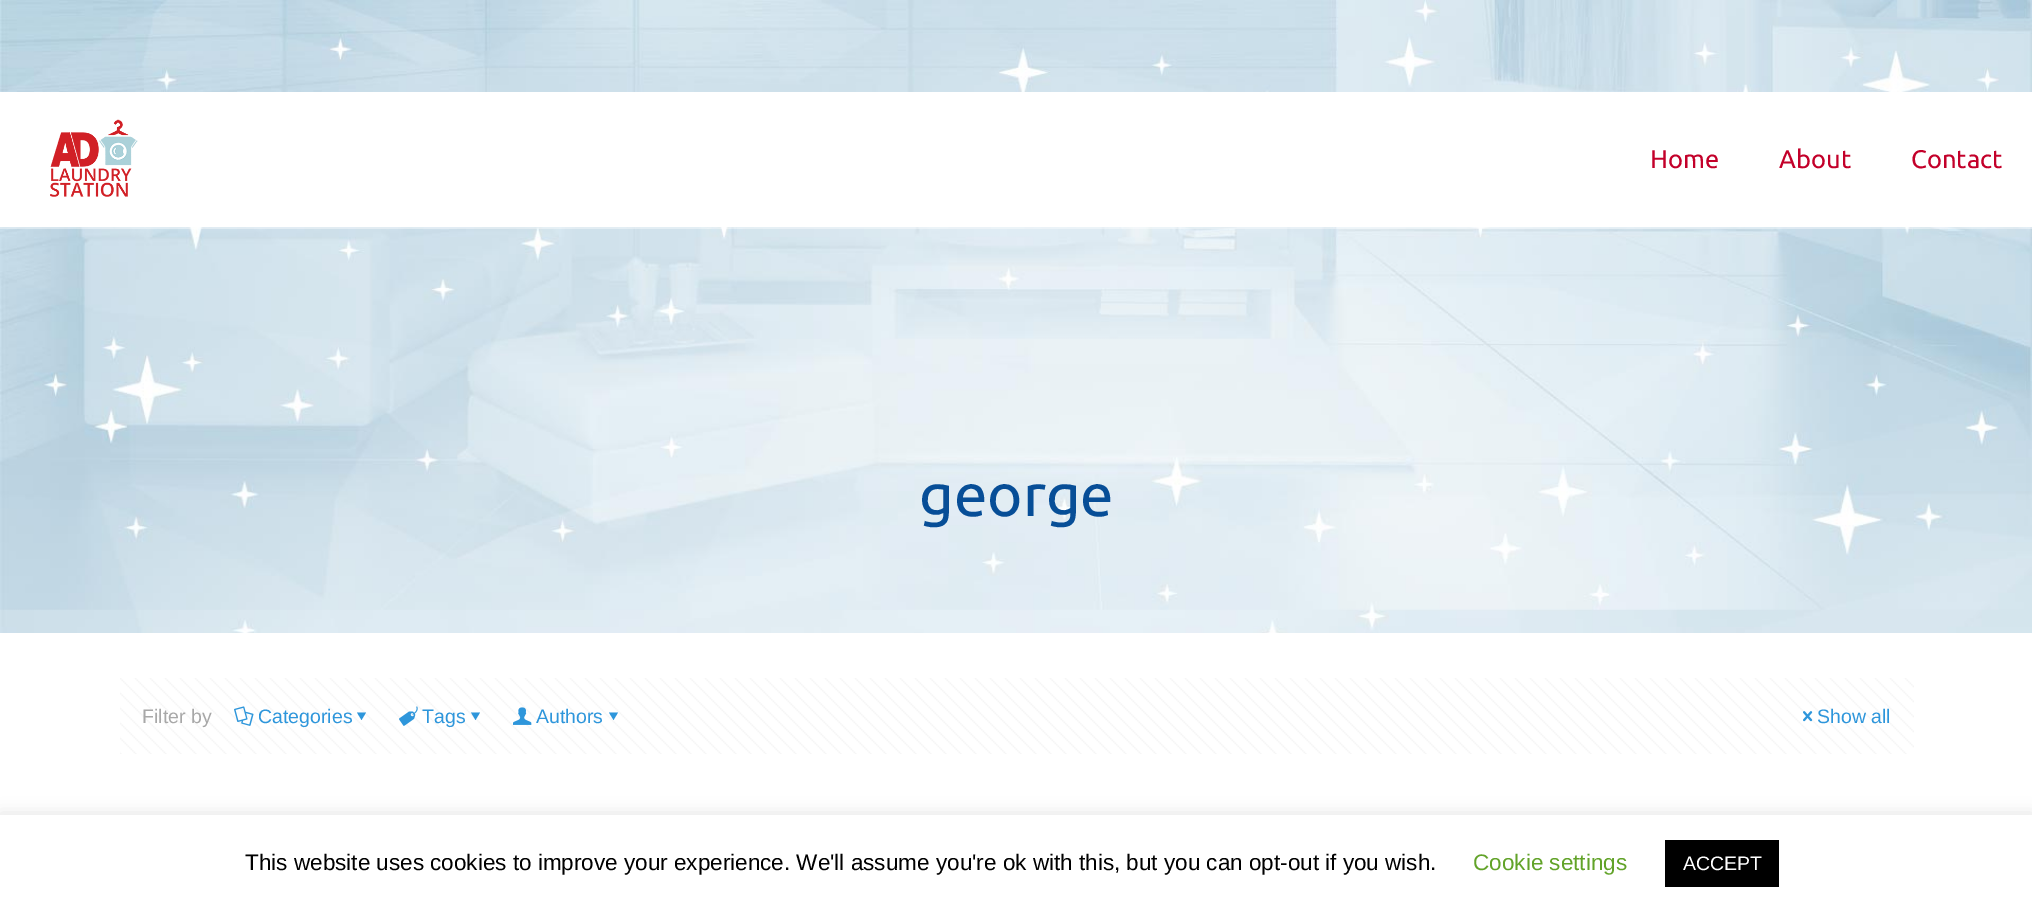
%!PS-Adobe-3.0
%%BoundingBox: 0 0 2032 912
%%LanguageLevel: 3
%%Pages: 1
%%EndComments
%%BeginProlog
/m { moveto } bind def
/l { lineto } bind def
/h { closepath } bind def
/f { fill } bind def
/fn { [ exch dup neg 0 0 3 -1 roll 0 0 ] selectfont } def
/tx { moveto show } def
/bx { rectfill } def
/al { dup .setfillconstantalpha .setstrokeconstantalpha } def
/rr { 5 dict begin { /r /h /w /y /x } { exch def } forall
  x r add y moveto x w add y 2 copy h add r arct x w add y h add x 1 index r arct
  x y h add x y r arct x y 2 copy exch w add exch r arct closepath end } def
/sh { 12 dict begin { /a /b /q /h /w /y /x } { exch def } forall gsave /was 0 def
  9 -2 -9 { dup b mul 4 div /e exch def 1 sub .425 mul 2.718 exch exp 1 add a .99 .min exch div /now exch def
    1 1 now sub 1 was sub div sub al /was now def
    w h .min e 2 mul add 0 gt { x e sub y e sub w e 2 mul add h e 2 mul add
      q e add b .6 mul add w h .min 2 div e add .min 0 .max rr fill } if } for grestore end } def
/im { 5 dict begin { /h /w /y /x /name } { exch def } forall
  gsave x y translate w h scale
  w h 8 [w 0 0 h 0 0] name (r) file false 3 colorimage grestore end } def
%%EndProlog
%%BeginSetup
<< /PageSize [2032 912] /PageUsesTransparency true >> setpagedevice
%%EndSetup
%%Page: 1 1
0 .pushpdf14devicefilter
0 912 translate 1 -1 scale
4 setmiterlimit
1 setgray
0 0 2032 912 bx
(image0.raw) 0 0 2032 633 im
0.4 al
0 227 2032 2 bx
1 al
0 92 2032 135 bx
(image1.raw) 50 119 88 78 im
/Ubuntu-Regular 25.5 fn
0.765 0 0.165 setrgbcolor
(Home) 1650 168 tx
(About) 1779 168 tx
(Contact) 1911 168 tx
/Ubuntu-Regular 60 fn
0.027 0.306 0.592 setrgbcolor
(george) 919 516 tx
(image2.raw) 120 678 1794 76 im
/LiberationSans-Regular 19.5 fn
0.659 setgray
(Filter by) 142 723 tx
(image3.raw) 234 706 20 20 im
0.18 0.588 0.859 setrgbcolor
(Categories) 258 723 tx
366 712.5 m 361.5 720 l 357 712.5 l h f
(image4.raw) 399 706 19 20 im
(Tags) 422 723 tx
480 712.5 m 475.5 720 l 471 712.5 l h f
(image5.raw) 513 707 19 18 im
(Authors) 536 723 tx
618 712.5 m 613.5 720 l 609 712.5 l h f
(image6.raw) 1803 711 10 11 im
(Show all) 1817 723 tx
0.675 0.671 0.671 setrgbcolor
0 813 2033 98 0 7.5 0.3 sh
1 setgray
0 815 2032 97 bx
/LiberationSans-Regular 22.5 fn
0 setgray
(This website uses cookies to improve your experience. We'll assume you're ok with this, but you can opt-out if you wish.) 245 870 tx
0.384 0.639 0.161 setrgbcolor
(Cookie settings) 1473 870 tx
0 setgray
1665 840 114 47 bx
/LiberationSans-Regular 19.5 fn
1 setgray
(ACCEPT) 1683 870 tx
.poppdf14devicefilter showpage
%%EOF
